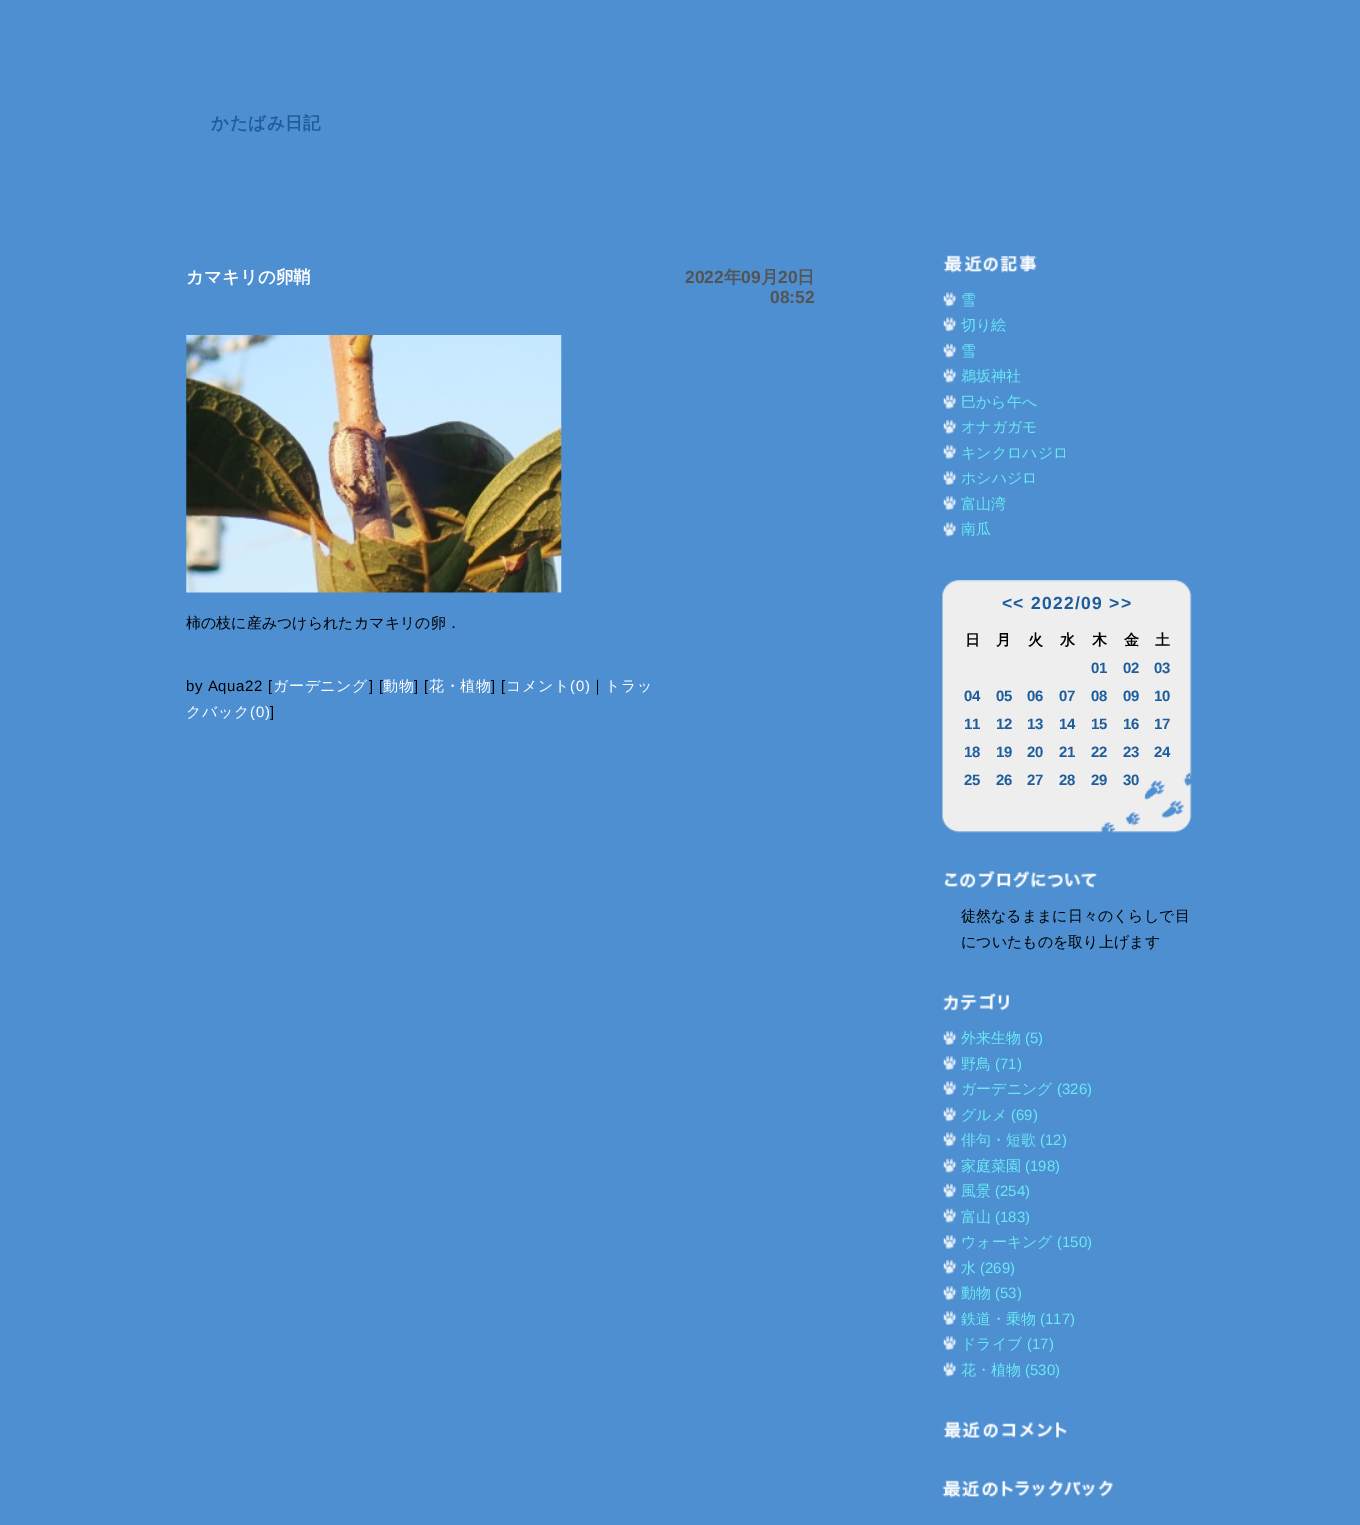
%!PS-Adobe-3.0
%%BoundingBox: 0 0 1360 1525
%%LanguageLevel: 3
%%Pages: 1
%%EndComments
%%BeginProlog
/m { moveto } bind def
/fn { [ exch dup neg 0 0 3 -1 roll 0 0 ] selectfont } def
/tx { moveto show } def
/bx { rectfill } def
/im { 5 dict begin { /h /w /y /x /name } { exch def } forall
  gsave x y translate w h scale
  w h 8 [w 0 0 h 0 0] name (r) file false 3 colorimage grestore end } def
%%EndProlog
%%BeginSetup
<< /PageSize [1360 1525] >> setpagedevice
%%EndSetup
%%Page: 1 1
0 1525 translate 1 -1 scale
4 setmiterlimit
0.306 0.561 0.82 setrgbcolor
0 0 1360 1525 bx
/WenQuanYiZenHei-Bold 17.5 fn
0.114 0.365 0.608 setrgbcolor
211 129 m 0.6 0 (かたばみ日記) ashow
1 setgray
(カマキリの卵鞘) 186 283 tx
/LiberationSans-Bold 17.5 fn
0.329 setgray
(2022) 685 283 tx
/WenQuanYiZenHei-Bold 17.5 fn
(年) 724 283 tx
/LiberationSans-Bold 17.5 fn
(09) 741 283 tx
/WenQuanYiZenHei-Bold 17.5 fn
(月) 761 283 tx
/LiberationSans-Bold 17.5 fn
(20) 778 283 tx
/WenQuanYiZenHei-Bold 17.5 fn
(日) 797 283 tx
/LiberationSans-Bold 17.5 fn
(08:52) 770 303 tx
(image0.raw) 186 335 376 258 im
/WenQuanYiZenHei-Medium 15 fn
0 setgray
(柿の枝に産みつけられたカマキリの卵．) 186 628 tx
/LiberationSans-Regular 15 fn
186 691 m 0.6 0 (by Aqua22 [) ashow
/WenQuanYiZenHei-Medium 15 fn
1 setgray
273 691 m 0.6 0 (ガーデニング) ashow
/LiberationSans-Regular 15 fn
0 setgray
369 691 m 0.6 0 (] [) ashow
/WenQuanYiZenHei-Medium 15 fn
1 setgray
383 691 m 0.6 0 (動物) ashow
/LiberationSans-Regular 15 fn
0 setgray
414 691 m 0.6 0 (] [) ashow
/WenQuanYiZenHei-Medium 15 fn
1 setgray
429 691 m 0.6 0 (花・植物) ashow
/LiberationSans-Regular 15 fn
0 setgray
491 691 m 0.6 0 (] [) ashow
/WenQuanYiZenHei-Medium 15 fn
1 setgray
506 691 m 0.6 0 (コメント) ashow
/LiberationSans-Regular 15 fn
570 691 m 0.6 0 (\(0\)) ashow
/WenQuanYiZenHei-Medium 15 fn
0 setgray
590 691 m 0.6 0 (｜) ashow
1 setgray
605 691 m 0.6 0 (トラッ) ashow
186 717 m 0.6 0 (クバック) ashow
/LiberationSans-Regular 15 fn
250 717 m 0.6 0 (\(0\)) ashow
0 setgray
270 717 m 0.6 0 (]) ashow
(image1.raw) 943 254 94 19 im
(image2.raw) 943 292 14 15 im
/WenQuanYiZenHei-Medium 15 fn
0.408 0.918 0.965 setrgbcolor
(雪) 961 305 tx
(image3.raw) 943 317 14 15 im
(切り絵) 961 330 tx
(image4.raw) 943 343 14 15 im
(雪) 961 356 tx
(image4.raw) 943 368 14 15 im
(鵜坂神社) 961 381 tx
(image5.raw) 943 395 14 14 im
(巳から午へ) 961 407 tx
(image5.raw) 943 420 14 14 im
(オナガガモ) 961 432 tx
(image5.raw) 943 445 14 14 im
(キンクロハジロ) 961 458 tx
(image6.raw) 943 471 14 14 im
(ホシハジロ) 961 483 tx
(image6.raw) 943 496 14 14 im
(富山湾) 961 509 tx
(image3.raw) 943 522 14 15 im
(南瓜) 961 534 tx
(image7.raw) 942 580 250 253 im
/LiberationSans-Bold 17.5 fn
0.114 0.365 0.608 setrgbcolor
1002 609 m 1.25 0 (<< 2022/09 >>) ashow
/WenQuanYiZenHei-Bold 15 fn
0 setgray
(日) 965 645 tx
(月) 996 645 tx
(火) 1028 645 tx
(水) 1060 645 tx
(木) 1092 645 tx
(金) 1124 645 tx
(土) 1155 645 tx
/LiberationSans-Bold 15 fn
0.114 0.365 0.608 setrgbcolor
(01) 1091 673 tx
(02) 1123 673 tx
(03) 1154 673 tx
(04) 964 701 tx
(05) 996 701 tx
(06) 1027 701 tx
(07) 1059 701 tx
(08) 1091 701 tx
(09) 1123 701 tx
(10) 1154 701 tx
(11) 964 729 tx
(12) 996 729 tx
(13) 1027 729 tx
(14) 1059 729 tx
(15) 1091 729 tx
(16) 1123 729 tx
(17) 1154 729 tx
(18) 964 757 tx
(19) 996 757 tx
(20) 1027 757 tx
(21) 1059 757 tx
(22) 1091 757 tx
(23) 1123 757 tx
(24) 1154 757 tx
(25) 964 785 tx
(26) 996 785 tx
(27) 1027 785 tx
(28) 1059 785 tx
(29) 1091 785 tx
(30) 1123 785 tx
(image8.raw) 944 870 153 18 im
/WenQuanYiZenHei-Medium 15 fn
0 setgray
(徒然なるままに日々のくらしで目) 961 921 tx
(についたものを取り上げます) 961 947 tx
(image9.raw) 943 992 66 19 im
(image6.raw) 943 1031 14 14 im
0.408 0.918 0.965 setrgbcolor
(外来生物) 961 1043 tx
/LiberationSans-Regular 15 fn
(\(5\)) 1025 1043 tx
(image6.raw) 943 1056 14 14 im
/WenQuanYiZenHei-Medium 15 fn
(野鳥) 961 1069 tx
/LiberationSans-Regular 15 fn
(\(71\)) 995 1069 tx
(image6.raw) 943 1081 14 14 im
/WenQuanYiZenHei-Medium 15 fn
(ガーデニング) 961 1094 tx
/LiberationSans-Regular 15 fn
(\(326\)) 1057 1094 tx
(image3.raw) 943 1107 14 15 im
/WenQuanYiZenHei-Medium 15 fn
(グルメ) 961 1120 tx
/LiberationSans-Regular 15 fn
(\(69\)) 1011 1120 tx
(image3.raw) 943 1132 14 15 im
/WenQuanYiZenHei-Medium 15 fn
(俳句・短歌) 961 1145 tx
/LiberationSans-Regular 15 fn
(\(12\)) 1040 1145 tx
(image4.raw) 943 1158 14 15 im
/WenQuanYiZenHei-Medium 15 fn
(家庭菜園) 961 1171 tx
/LiberationSans-Regular 15 fn
(\(198\)) 1025 1171 tx
(image4.raw) 943 1183 14 15 im
/WenQuanYiZenHei-Medium 15 fn
(風景) 961 1196 tx
/LiberationSans-Regular 15 fn
(\(254\)) 995 1196 tx
(image4.raw) 943 1208 14 15 im
/WenQuanYiZenHei-Medium 15 fn
(富山) 961 1222 tx
/LiberationSans-Regular 15 fn
(\(183\)) 995 1222 tx
(image5.raw) 943 1235 14 14 im
/WenQuanYiZenHei-Medium 15 fn
(ウォーキング) 961 1247 tx
/LiberationSans-Regular 15 fn
(\(150\)) 1057 1247 tx
(image5.raw) 943 1260 14 14 im
/WenQuanYiZenHei-Medium 15 fn
(水) 961 1273 tx
/LiberationSans-Regular 15 fn
(\(269\)) 980 1273 tx
(image6.raw) 943 1286 14 14 im
/WenQuanYiZenHei-Medium 15 fn
(動物) 961 1298 tx
/LiberationSans-Regular 15 fn
(\(53\)) 995 1298 tx
(image6.raw) 943 1311 14 14 im
/WenQuanYiZenHei-Medium 15 fn
(鉄道・乗物) 961 1324 tx
/LiberationSans-Regular 15 fn
(\(117\)) 1040 1324 tx
(image6.raw) 943 1336 14 14 im
/WenQuanYiZenHei-Medium 15 fn
(ドライブ) 961 1349 tx
/LiberationSans-Regular 15 fn
(\(17\)) 1027 1349 tx
(image3.raw) 943 1362 14 15 im
/WenQuanYiZenHei-Medium 15 fn
(花・植物) 961 1375 tx
/LiberationSans-Regular 15 fn
(\(530\)) 1025 1375 tx
(image10.raw) 943 1421 124 18 im
(image11.raw) 942 1480 171 18 im
showpage
%%EOF
